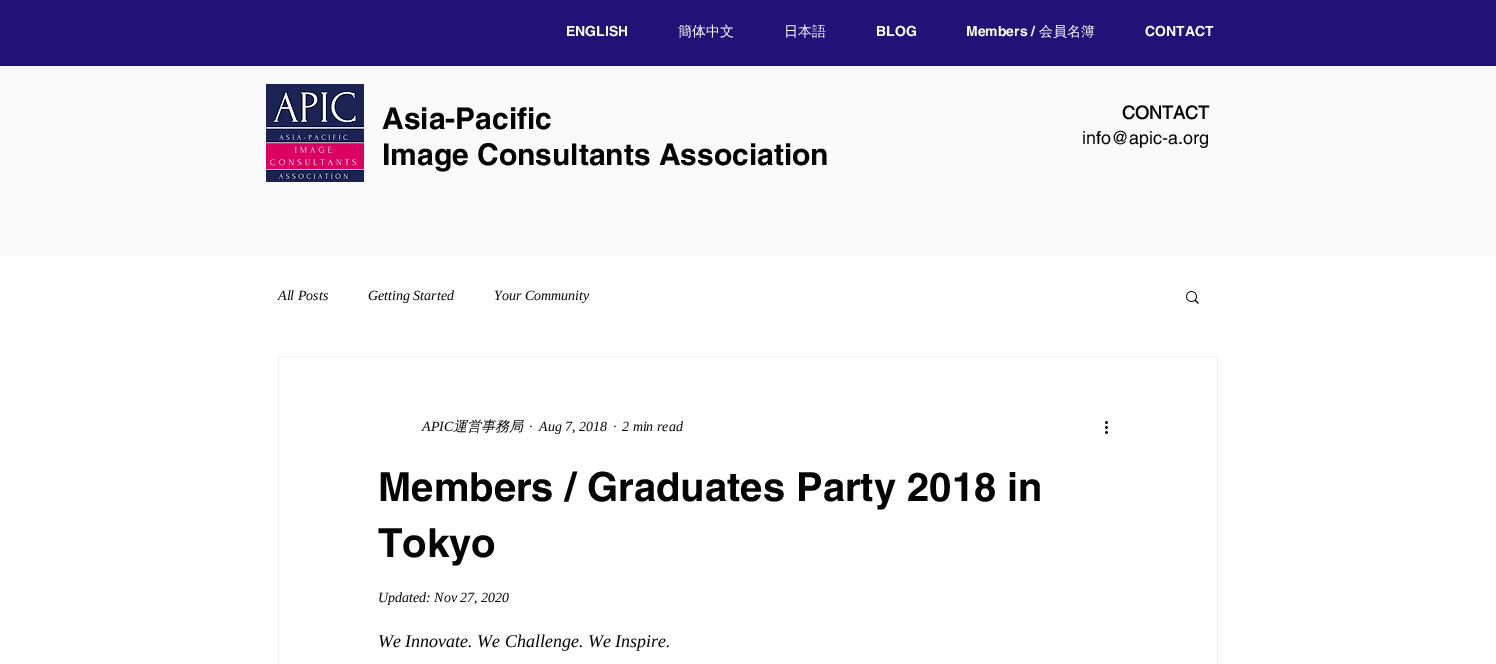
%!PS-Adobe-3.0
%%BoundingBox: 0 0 1496 664
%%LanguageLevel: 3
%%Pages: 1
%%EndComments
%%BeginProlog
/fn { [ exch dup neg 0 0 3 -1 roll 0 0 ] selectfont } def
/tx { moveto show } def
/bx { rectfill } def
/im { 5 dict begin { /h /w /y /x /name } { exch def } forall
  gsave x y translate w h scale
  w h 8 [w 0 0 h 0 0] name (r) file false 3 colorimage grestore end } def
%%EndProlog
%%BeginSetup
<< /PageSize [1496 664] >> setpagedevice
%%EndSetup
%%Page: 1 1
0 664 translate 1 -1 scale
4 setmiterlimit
1 setgray
0 0 1496 664 bx
0.133 0.067 0.467 setrgbcolor
0 0 1496 66 bx
/helvetica-Bold 14 fn
1 setgray
(ENGLISH) 566 36 tx
/WenQuanYiZenHei-Medium 14 fn
(簡体中文) 678 36 tx
(日本語) 784 36 tx
/helvetica-Bold 14 fn
(BLOG) 876 36 tx
(Members /) 966 36 tx
/WenQuanYiZenHei-Medium 14 fn
(会員名簿) 1039 36 tx
/helvetica-Bold 14 fn
(CONTACT) 1145 36 tx
0.98 setgray
0 66 1496 190 bx
(image0.raw) 266 84 98 98 im
/helvetica-Bold 30 fn
0.02 setgray
(Asia-Pacific) 382 129 tx
(Image Consultants Association) 382 165 tx
/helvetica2-Bold 18 fn
(CONTACT) 1122 119 tx
/helvetica-Regular 18 fn
(info@apic-a.org) 1082 144 tx
/LiberationSerif-Italic 14 fn
(All Posts) 278 300 tx
(Getting Started) 368 300 tx
(Your Community) 494 300 tx
(image1.raw) 1186 291 13 13 im
0.945 setgray
278.5 356.5 939 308 rectstroke
0.02 setgray
(APIC) 422 431 tx
/WenQuanYiZenHei-MediumItalic 14 fn
(運営事務局) 453 431 tx
/LiberationSerif-Italic 14 fn
(·) 529 431 tx
(Aug 7, 2018) 539 431 tx
(·) 613 431 tx
(2 min read) 622 431 tx
(image2.raw) 1105 421 3 13 im
/helvetica-Bold 40 fn
(Members / Graduates Party 2018 in) 378 501 tx
(Tokyo) 378 557 tx
/LiberationSerif-Italic 14 fn
(Updated: Nov 27, 2020) 378 602 tx
/LiberationSerif-Italic 18 fn
(We Innovate. We Challenge. We Inspire.) 378 647 tx
showpage
%%EOF
